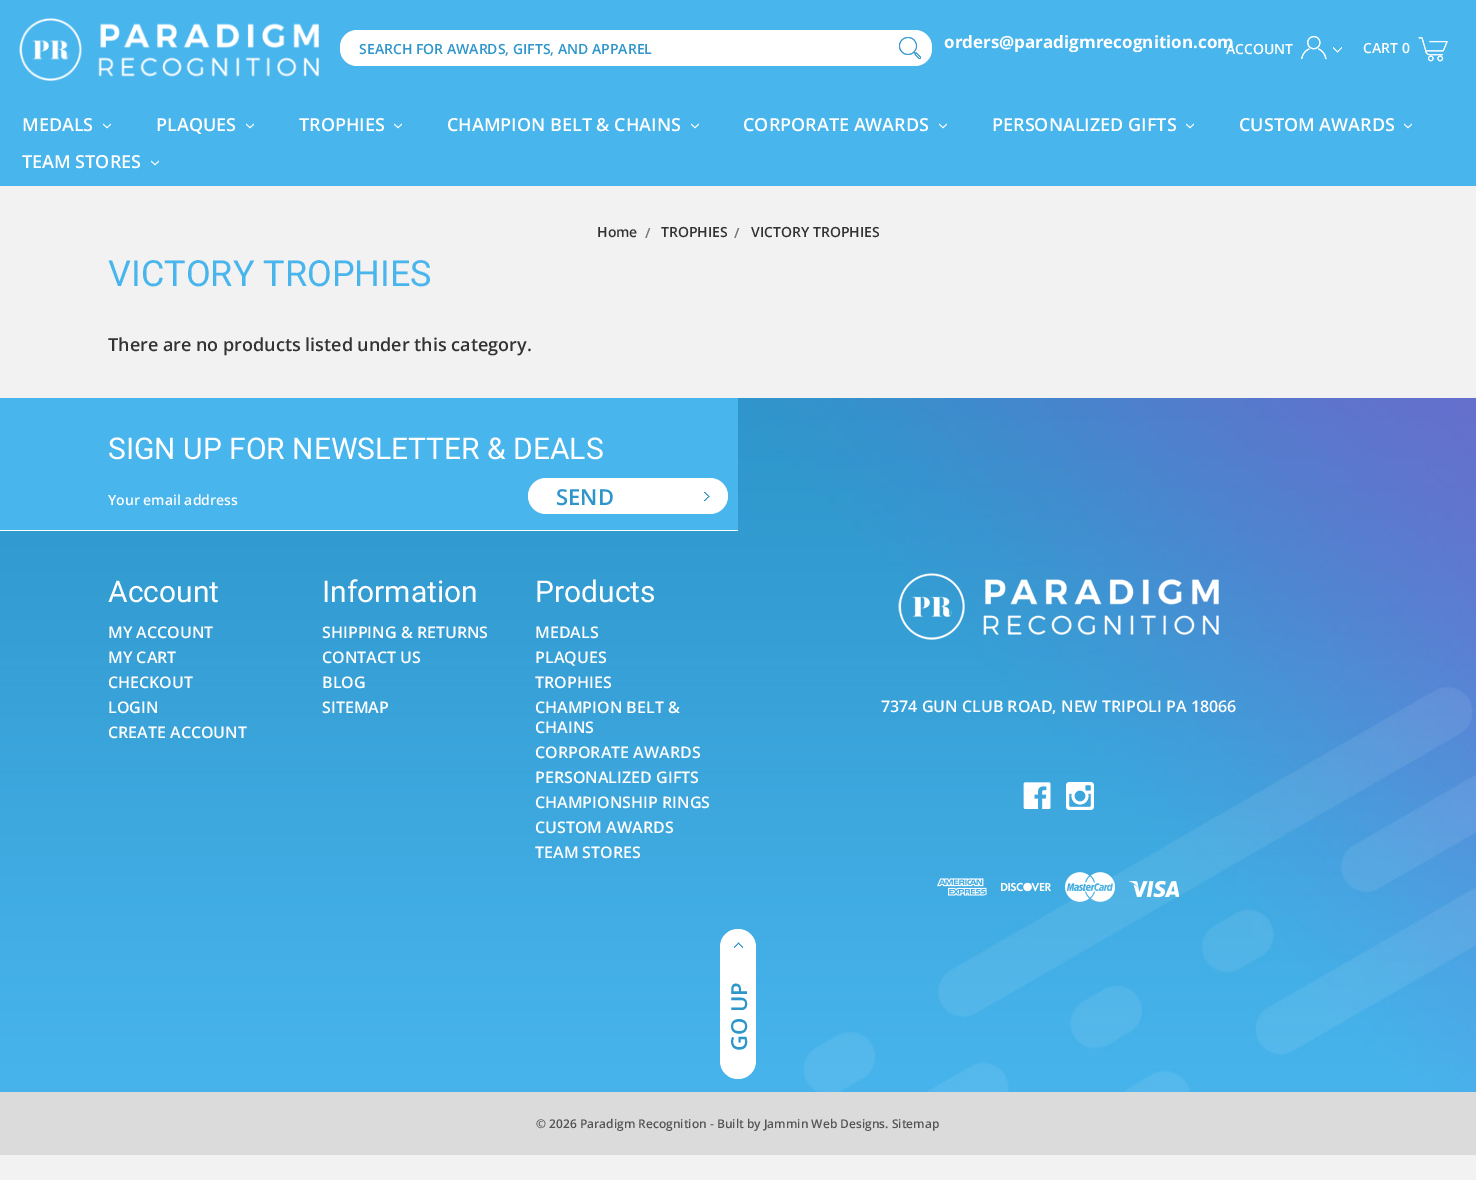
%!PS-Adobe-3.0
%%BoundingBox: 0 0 1476 1180
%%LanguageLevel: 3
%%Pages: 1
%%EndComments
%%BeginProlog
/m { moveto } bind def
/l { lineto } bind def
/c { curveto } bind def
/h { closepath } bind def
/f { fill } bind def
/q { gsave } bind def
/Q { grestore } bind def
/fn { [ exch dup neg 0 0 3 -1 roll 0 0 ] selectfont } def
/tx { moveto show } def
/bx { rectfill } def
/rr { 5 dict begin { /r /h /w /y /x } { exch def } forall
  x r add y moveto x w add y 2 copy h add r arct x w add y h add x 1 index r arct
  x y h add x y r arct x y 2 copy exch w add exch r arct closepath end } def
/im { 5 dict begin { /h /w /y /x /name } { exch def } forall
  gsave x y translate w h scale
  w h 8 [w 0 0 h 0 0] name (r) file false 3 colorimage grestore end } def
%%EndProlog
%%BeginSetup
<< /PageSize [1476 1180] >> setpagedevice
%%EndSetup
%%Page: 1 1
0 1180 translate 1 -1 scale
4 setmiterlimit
0.949 setgray
0 0 1476 1180 bx
0.282 0.71 0.929 setrgbcolor
0 0 1476 186 bx
(image0.raw) 19 18 300 63 im
1 setgray
340 30 592 36 17 rr f
/OpenSans-SemiBold 14 fn
0.18 0.588 0.796 setrgbcolor
(SEARCH FOR AWARDS, GIFTS, AND APPAREL) 359 54 tx
(image1.raw) 899 37 22 22 im
/OpenSans-Bold 17 fn
1 setgray
(orders@paradigmrecognition.com) 944 48 tx
/OpenSans-SemiBold 14 fn
(ACCOUNT) 1226 54 tx
(image2.raw) 1301 36 26 23 im
(image3.raw) 1333 47 9 6 im
(CART 0) 1363 53 tx
(image4.raw) 1418 37 30 25 im
/OpenSans-SemiBold 18 fn
(MEDALS) 22 131 tx
(image5.raw) 103 123 8 6 im
(PLAQUES) 156 131 tx
(image5.raw) 246 123 8 6 im
(TROPHIES) 299 131 tx
(image5.raw) 394 123 8 6 im
(CHAMPION BELT & CHAINS) 447 131 tx
(image5.raw) 691 123 8 6 im
(CORPORATE AWARDS) 743 131 tx
(image5.raw) 939 123 8 6 im
(PERSONALIZED GIFTS) 992 131 tx
(image5.raw) 1186 123 8 6 im
(CUSTOM AWARDS) 1239 131 tx
(image5.raw) 1404 123 8 6 im
(TEAM STORES) 22 168 tx
(image5.raw) 151 160 8 6 im
/OpenSans-SemiBold 14 fn
0.2 setgray
(Home) 597 237 tx
0.459 setgray
(/) 645 238 tx
0.2 setgray
(TROPHIES) 661 237 tx
0.459 setgray
(/) 734 238 tx
0.2 setgray
(VICTORY TROPHIES) 751 237 tx
/Roboto-Regular 36 fn
0.282 0.71 0.929 setrgbcolor
(VICTORY TROPHIES) 108 286 tx
/OpenSans-SemiBold 18 fn
0.2 setgray
(There are no products listed under this category.) 108 351 tx
(image6.raw) 0 398 1476 694 im
0.282 0.71 0.929 setrgbcolor
0 398 738 132 bx
/Roboto-Regular 30 fn
1 setgray
(SIGN UP FOR NEWSLETTER & DEALS) 108 459 tx
/OpenSans-SemiBold 14 fn
(Your email address) 108 505 tx
528 478 200 36 18 rr f
/OpenSans-SemiBold 22 fn
0.18 0.588 0.796 setrgbcolor
(SEND) 556 505 tx
(image7.raw) 704 492 6 9 im
1 setgray
0 530 738 1 bx
/Roboto-Regular 30 fn
(Account) 108 602 tx
/OpenSans-SemiBold 16 fn
(MY ACCOUNT) 108 638 tx
(MY CART) 108 663 tx
(CHECKOUT) 108 688 tx
(LOGIN) 108 713 tx
(CREATE ACCOUNT) 108 738 tx
/Roboto-Regular 30 fn
(Information) 322 602 tx
/OpenSans-SemiBold 16 fn
(SHIPPING & RETURNS) 322 638 tx
(CONTACT US) 322 663 tx
(BLOG) 322 688 tx
(SITEMAP) 322 713 tx
/Roboto-Regular 30 fn
(Products) 535 602 tx
/OpenSans-SemiBold 16 fn
(MEDALS) 535 638 tx
(PLAQUES) 535 663 tx
(TROPHIES) 535 688 tx
(CHAMPION BELT &) 535 713 tx
(CHAINS) 535 733 tx
(CORPORATE AWARDS) 535 758 tx
(PERSONALIZED GIFTS) 535 783 tx
(CHAMPIONSHIP RINGS) 535 808 tx
(CUSTOM AWARDS) 535 833 tx
(TEAM STORES) 535 858 tx
(image8.raw) 898 573 321 67 im
(7374 GUN CLUB ROAD, NEW TRIPOLI PA 18066) 881 712 tx
(image9.raw) 1023 782 28 27 im
(image10.raw) 1066 782 28 28 im
(image11.raw) 937 878 50 18 im
(image12.raw) 1001 882 50 10 im
(image13.raw) 1065 872 50 30 im
(image14.raw) 1129 880 50 18 im
720 1061 m 720 947 l 720 937 728 929 738 929 c 748 929 756 937 756 947 c 756 1061 l 756 1071 748 1079 738 1079 c 728 1079 720 1071 720 1061 c h f
(image15.raw) 734 942 9 6 im
/OpenSans-SemiBold 22 fn
0.18 0.588 0.796 setrgbcolor
q 747 1051 translate -90 rotate 0 0 m (GO UP) show Q
0.859 setgray
0 1092 1476 63 bx
/OpenSans-SemiBold 12 fn
0.333 setgray
(© 2026 Paradigm Recognition - Built by Jammin Web Designs. Sitemap) 536 1128 tx
showpage
%%EOF
